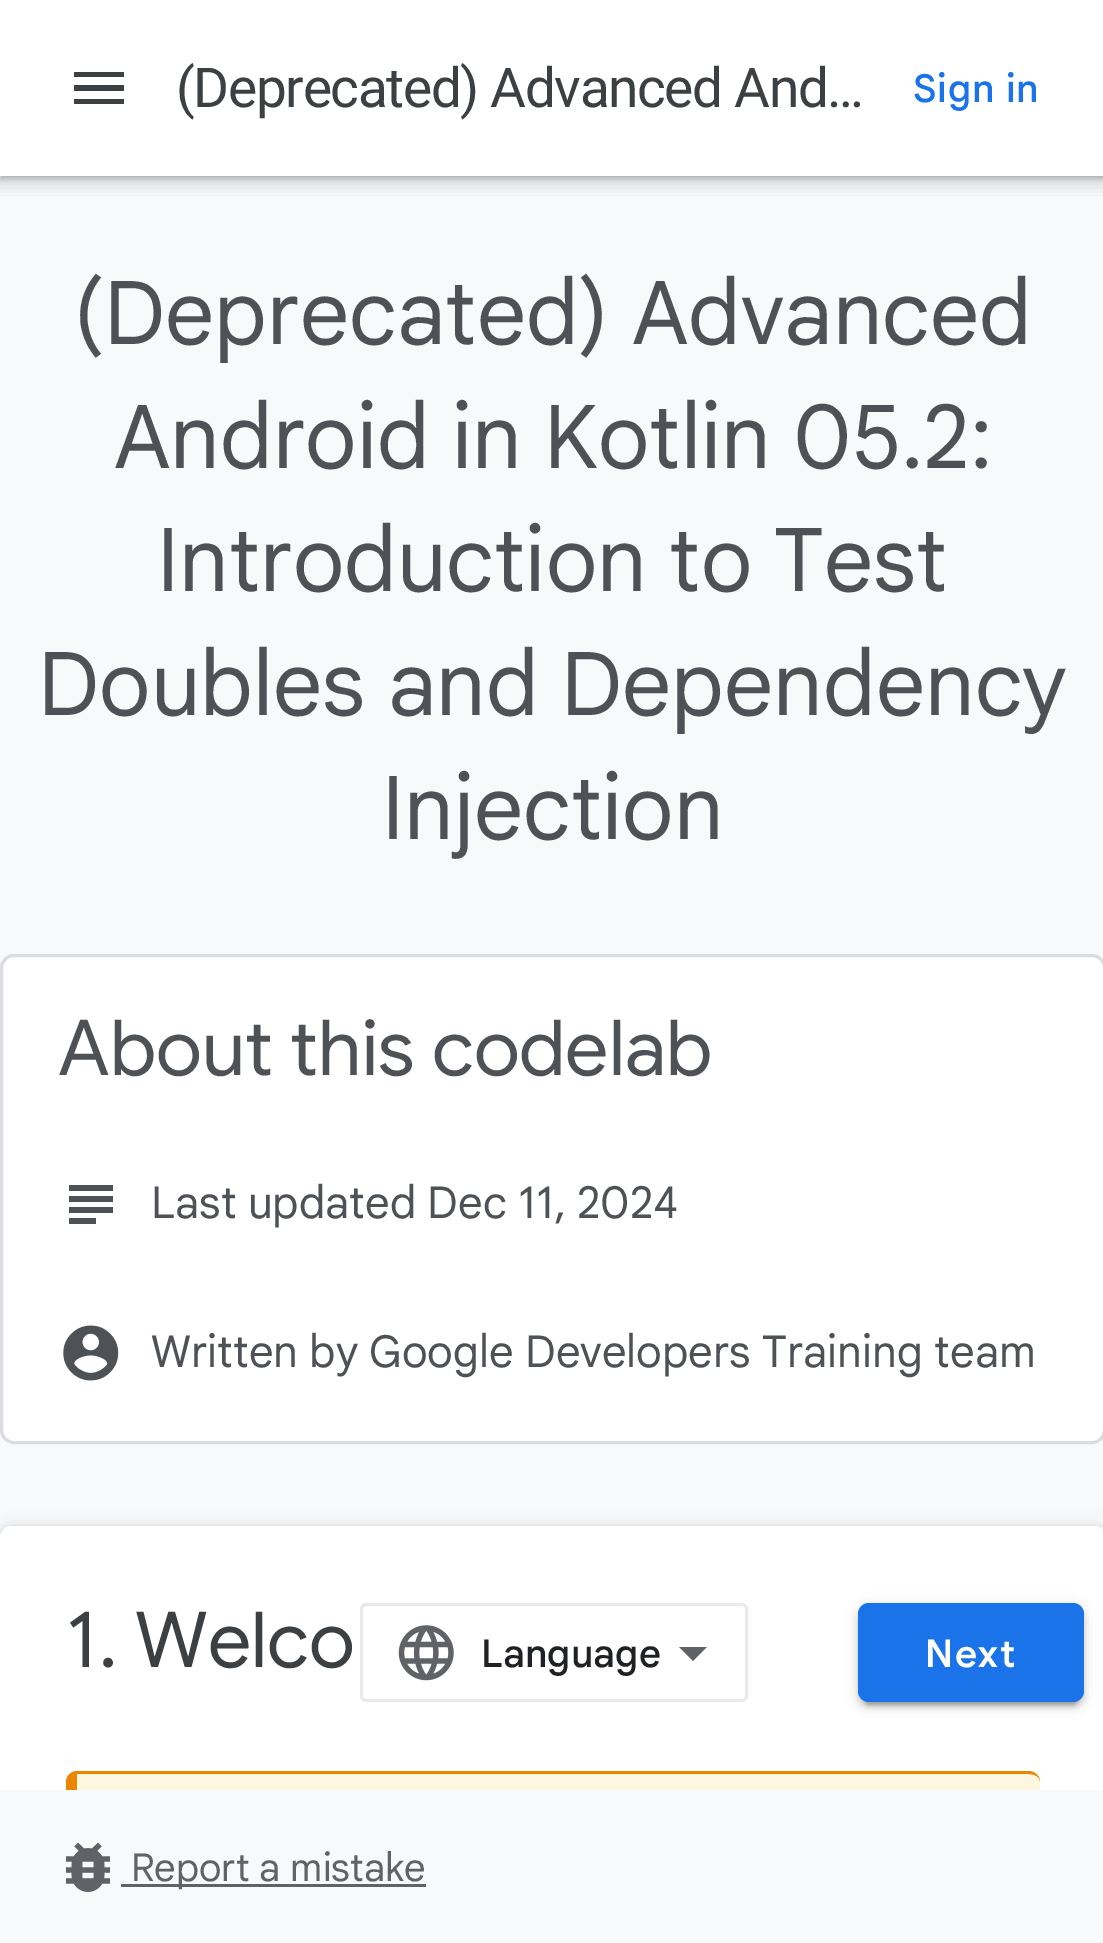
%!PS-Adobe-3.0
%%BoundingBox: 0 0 1103 1943
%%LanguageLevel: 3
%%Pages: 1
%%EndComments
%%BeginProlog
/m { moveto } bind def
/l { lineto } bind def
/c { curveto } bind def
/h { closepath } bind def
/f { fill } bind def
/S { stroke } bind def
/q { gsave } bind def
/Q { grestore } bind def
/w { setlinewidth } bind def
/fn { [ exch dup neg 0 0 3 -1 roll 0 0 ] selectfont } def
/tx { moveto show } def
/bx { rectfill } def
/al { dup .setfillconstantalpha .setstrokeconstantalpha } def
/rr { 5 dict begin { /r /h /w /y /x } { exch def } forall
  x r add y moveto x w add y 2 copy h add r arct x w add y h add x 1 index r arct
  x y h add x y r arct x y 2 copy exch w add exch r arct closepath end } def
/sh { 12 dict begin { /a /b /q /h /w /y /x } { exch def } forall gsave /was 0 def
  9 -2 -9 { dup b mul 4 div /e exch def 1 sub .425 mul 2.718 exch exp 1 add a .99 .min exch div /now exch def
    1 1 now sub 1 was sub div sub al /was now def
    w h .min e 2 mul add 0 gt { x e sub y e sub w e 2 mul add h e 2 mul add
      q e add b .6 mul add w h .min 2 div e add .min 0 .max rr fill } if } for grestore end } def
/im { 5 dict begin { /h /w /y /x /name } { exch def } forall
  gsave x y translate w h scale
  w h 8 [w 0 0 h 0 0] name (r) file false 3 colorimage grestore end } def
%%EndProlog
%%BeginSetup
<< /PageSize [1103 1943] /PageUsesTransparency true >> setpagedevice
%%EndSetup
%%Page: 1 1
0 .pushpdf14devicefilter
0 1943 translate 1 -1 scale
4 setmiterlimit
1 setgray
0 0 1103 1943 bx
0.973 0.976 0.98 setrgbcolor
0 176 1103 1361 bx
q
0 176 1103 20 rectclip
0.235 0.251 0.263 setrgbcolor
-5 0 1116 187 0 8 0.15 sh
Q
q
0 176 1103 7 rectclip
0.235 0.251 0.263 setrgbcolor
0 3 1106 176 0 3 0.3 sh
Q
0.235 0.251 0.263 setrgbcolor
74 72 m 124 72 l 124 77 l 74 77 l h 74 91 m 74 85 l 124 85 l 124 91 l h 74 104 m 74 99 l 124 99 l 124 104 l h f
/Roboto-Regular 55 fn
176 107 m -1.4 0 (\(Deprecated\) Advanced And…) ashow
/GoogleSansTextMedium-Medium 38.5 fn
0.102 0.451 0.91 setrgbcolor
913 102 m 0.75 0 (Sign in) ashow
/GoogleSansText-Regular 88 fn
0.306 0.322 0.337 setrgbcolor
(\(Deprecated\) Advanced) 73 344 tx
(Android in Kotlin 05.2:) 114 468 tx
(Introduction to Test) 157 591 tx
(Doubles and Dependency) 38 715 tx
(Injection) 382 839 tx
1 setgray
1.5 955.5 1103 487 12.5 rr q f Q
0.855 0.863 0.878 setrgbcolor
3 w
S
/GoogleSans-Regular 77 fn
0.306 0.322 0.337 setrgbcolor
(About this codelab) 58 1075 tx
69 1185 m 113 1185 l 113 1191 l 69 1191 l h 69 1213 m 69 1207 l 113 1207 l 113 1213 l h 113 1196 m 113 1202 l 69 1202 l 69 1196 l h 96 1218 m 96 1224 l 69 1224 l 69 1218 l h f
/GoogleSansText-Regular 44 fn
(Last updated Dec 11, 2024) 151 1218 tx
(image0.raw) 63 1325 56 56 im
(Written by Google Developers Training team) 151 1367 tx
0.973 0.976 0.98 setrgbcolor
0 1790 1103 153 bx
(image2.raw) 65 1842 46 50 im
0.373 0.388 0.408 setrgbcolor
121 1884 305 3 bx
q
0 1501 m 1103 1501 l 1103 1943 l 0 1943 l h 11 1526 m 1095 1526 l 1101 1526 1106 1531 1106 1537 c 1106 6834 l 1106 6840 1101 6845 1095 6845 c 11 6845 l 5 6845 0 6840 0 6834 c 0 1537 l 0 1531 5 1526 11 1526 c h eoclip newpath
0.235 0.251 0.263 setrgbcolor
-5 1526 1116 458 17 8 0.15 sh
Q
q
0 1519 m 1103 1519 l 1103 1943 l 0 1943 l h 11 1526 m 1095 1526 l 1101 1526 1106 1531 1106 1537 c 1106 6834 l 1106 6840 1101 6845 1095 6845 c 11 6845 l 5 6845 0 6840 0 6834 c 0 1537 l 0 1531 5 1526 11 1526 c h eoclip newpath
0.235 0.251 0.263 setrgbcolor
0 1529 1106 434 11 3 0.3 sh
Q
1 setgray
11 1526 m 1095 1526 l 1101 1526 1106 1531 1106 1537 c 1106 1790 l 0 1790 l 0 1537 l 0 1531 5 1526 11 1526 c h f
/GoogleSans-Regular 77 fn
0.235 0.251 0.263 setrgbcolor
(1. Welco) 66 1667 tx
0.996 0.969 0.878 setrgbcolor
77 1771 m 1029 1771 l 1035 1771 1040 1776 1040 1782 c 1040 1790 l 66 1790 l 66 1782 l 66 1776 71 1771 77 1771 c h f
q
0 176 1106 1614 rectclip
0.918 0.525 0 setrgbcolor
77 1771 m 1028 1771 l 1035 1771 1040 1776 1040 1782 c 1040 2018 l 1040 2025 1035 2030 1028 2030 c 77 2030 l 71 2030 66 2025 66 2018 c 66 1782 l 66 1776 71 1771 77 1771 c h 77 1774 m 1028 1774 l 1035 1774 1040 1777 1040 1782 c 1040 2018 l 1040 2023 1035 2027 1028 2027 c 77 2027 l h eofill
Q
0.91 0.918 0.929 setrgbcolor
361.5 1604.5 385 96 4.5 rr S
(image1.raw) 398 1625 56 56 im
/GoogleSansTextMedium-Medium 38.5 fn
0.125 0.129 0.141 setrgbcolor
(Language) 481 1667 tx
0.373 0.388 0.408 setrgbcolor
693 1661 m 679 1647 l 707 1647 l h f
0 setgray
864 1617 214 88 6 1.5 0.2 sh
858 1606 226 99 11 7 0.12 sh
858 1609 226 99 11 3 0.14 sh
0.102 0.451 0.91 setrgbcolor
858 1603 226 99 11 rr f
/GoogleSans-SemiBold 38.5 fn
1 setgray
925 1667 m 1.5 0 (Next) ashow
/GoogleSansText-Regular 38.5 fn
0.373 0.388 0.408 setrgbcolor
(Report a mistake) 131 1881 tx
.poppdf14devicefilter showpage
%%EOF
